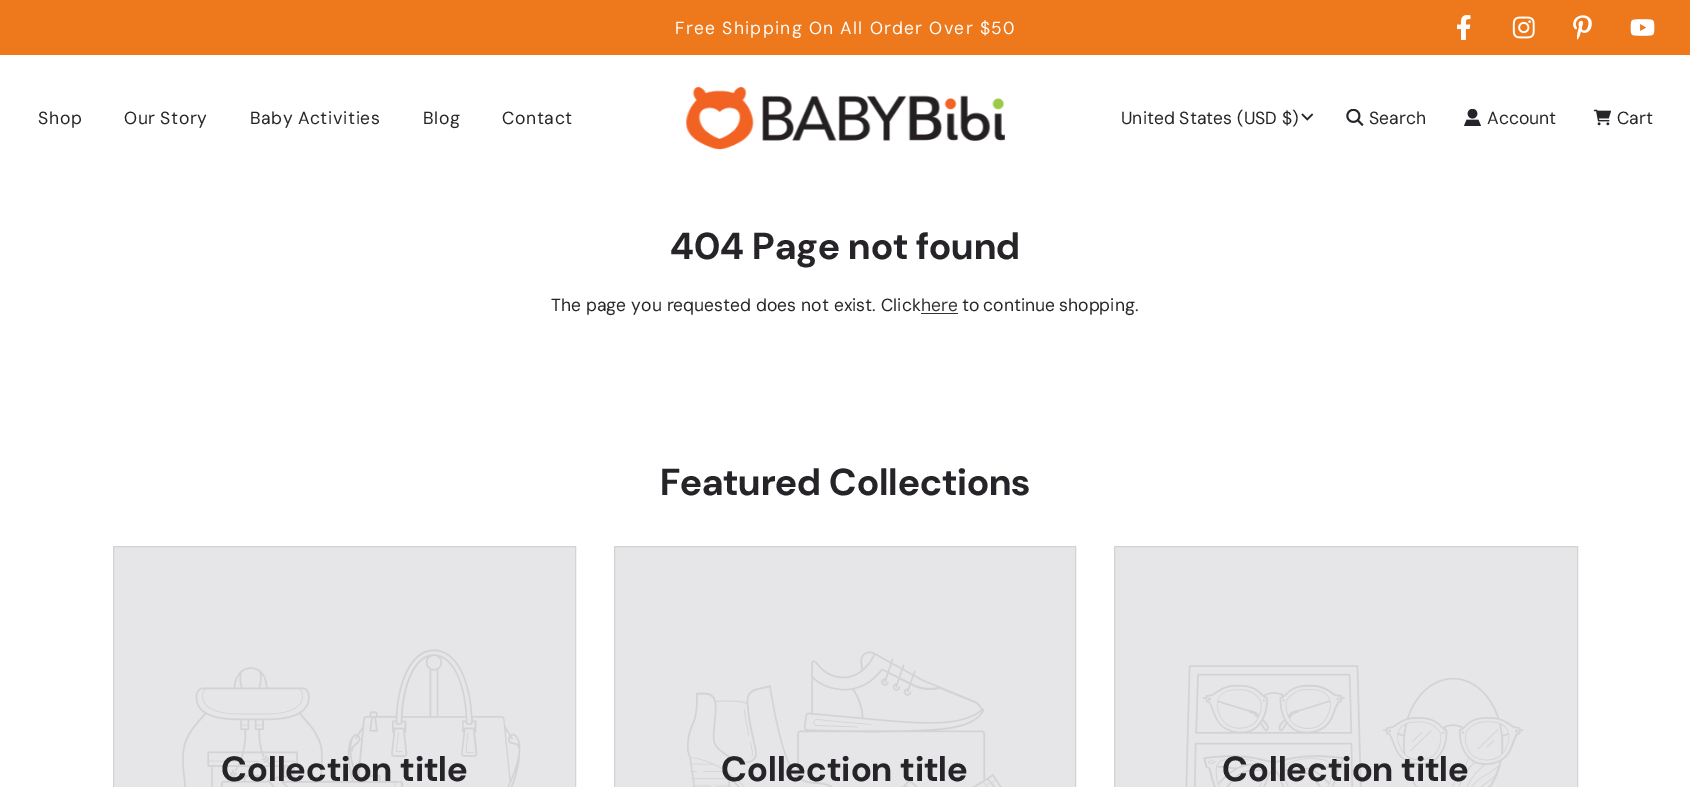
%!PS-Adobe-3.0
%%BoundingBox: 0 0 1690 787
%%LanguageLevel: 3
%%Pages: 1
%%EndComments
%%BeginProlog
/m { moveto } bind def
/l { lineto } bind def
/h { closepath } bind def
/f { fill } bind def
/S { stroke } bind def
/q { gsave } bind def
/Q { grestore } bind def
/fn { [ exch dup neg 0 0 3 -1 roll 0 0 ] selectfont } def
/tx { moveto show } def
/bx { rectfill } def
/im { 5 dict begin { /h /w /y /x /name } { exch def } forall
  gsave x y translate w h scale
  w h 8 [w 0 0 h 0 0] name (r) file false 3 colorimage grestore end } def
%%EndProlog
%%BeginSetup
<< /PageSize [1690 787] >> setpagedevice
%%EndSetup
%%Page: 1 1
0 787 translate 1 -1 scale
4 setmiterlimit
1 setgray
0 0 1690 787 bx
0.929 0.475 0.11 setrgbcolor
0 0 1690 55 bx
/DMSans-Regular 17.5 fn
1 setgray
675 34 m 1.25 0 (Free Shipping On All Order Over $50) ashow
(image0.raw) 1457 15 14 25 im
(image1.raw) 1512 16 23 23 im
(image2.raw) 1573 15 19 25 im
(image3.raw) 1630 19 25 17 im
0.149 0.141 0.157 setrgbcolor
38 124 m 0.6 0 (Shop) ashow
124 124 m -1 0 32 0.6 0 (Our Story) awidthshow
250 124 m -1 0 32 0.6 0 (Baby Activities) awidthshow
423 124 m 0.6 0 (Blog) ashow
502 124 m 0.6 0 (Contact) ashow
(image4.raw) 685 87 320 63 im
(United States \(USD $\)) 1121 124 tx
(image5.raw) 1301 113 13 8 im
(image6.raw) 1346 109 18 17 im
(Search) 1369 124 tx
(image7.raw) 1464 109 17 17 im
(Account) 1487 124 tx
(image8.raw) 1594 109 17 17 im
(Cart) 1617 124 tx
/DMSans-Bold 37.5 fn
(404 Page not found) 670 259 tx
/DMSans-Regular 17.5 fn
551 311 m 0.25 0 32 (The page you requested does not exist. Click) widthshow
0.2 setgray
(here) 921 311 tx
921 313 37 1 bx
0.149 0.141 0.157 setrgbcolor
962 311 m -1 0 32 (to continue shopping.) widthshow
/DMSans-Bold 37.5 fn
(Featured Collections) 660 495 tx
0.902 0.898 0.906 setrgbcolor
113.5 546.5 m 575.5 546.5 l 575.5 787.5 l 113.5 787.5 l h q f Q
0.831 0.827 0.831 setrgbcolor
S
(image9.raw) 182 649 339 138 im
/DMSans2-Bold 35 fn
0.149 0.141 0.157 setrgbcolor
(Collection title) 221 781 tx
0.902 0.898 0.906 setrgbcolor
614.5 546.5 m 1075.5 546.5 l 1075.5 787.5 l 614.5 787.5 l h q f Q
0.831 0.827 0.831 setrgbcolor
S
(image10.raw) 687 651 315 136 im
0.149 0.141 0.157 setrgbcolor
(Collection title) 721 781 tx
0.902 0.898 0.906 setrgbcolor
1114.5 546.5 m 1577.5 546.5 l 1577.5 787.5 l 1114.5 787.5 l h q f Q
0.831 0.827 0.831 setrgbcolor
S
(image11.raw) 1185 665 339 122 im
0.149 0.141 0.157 setrgbcolor
(Collection title) 1222 781 tx
showpage
%%EOF
